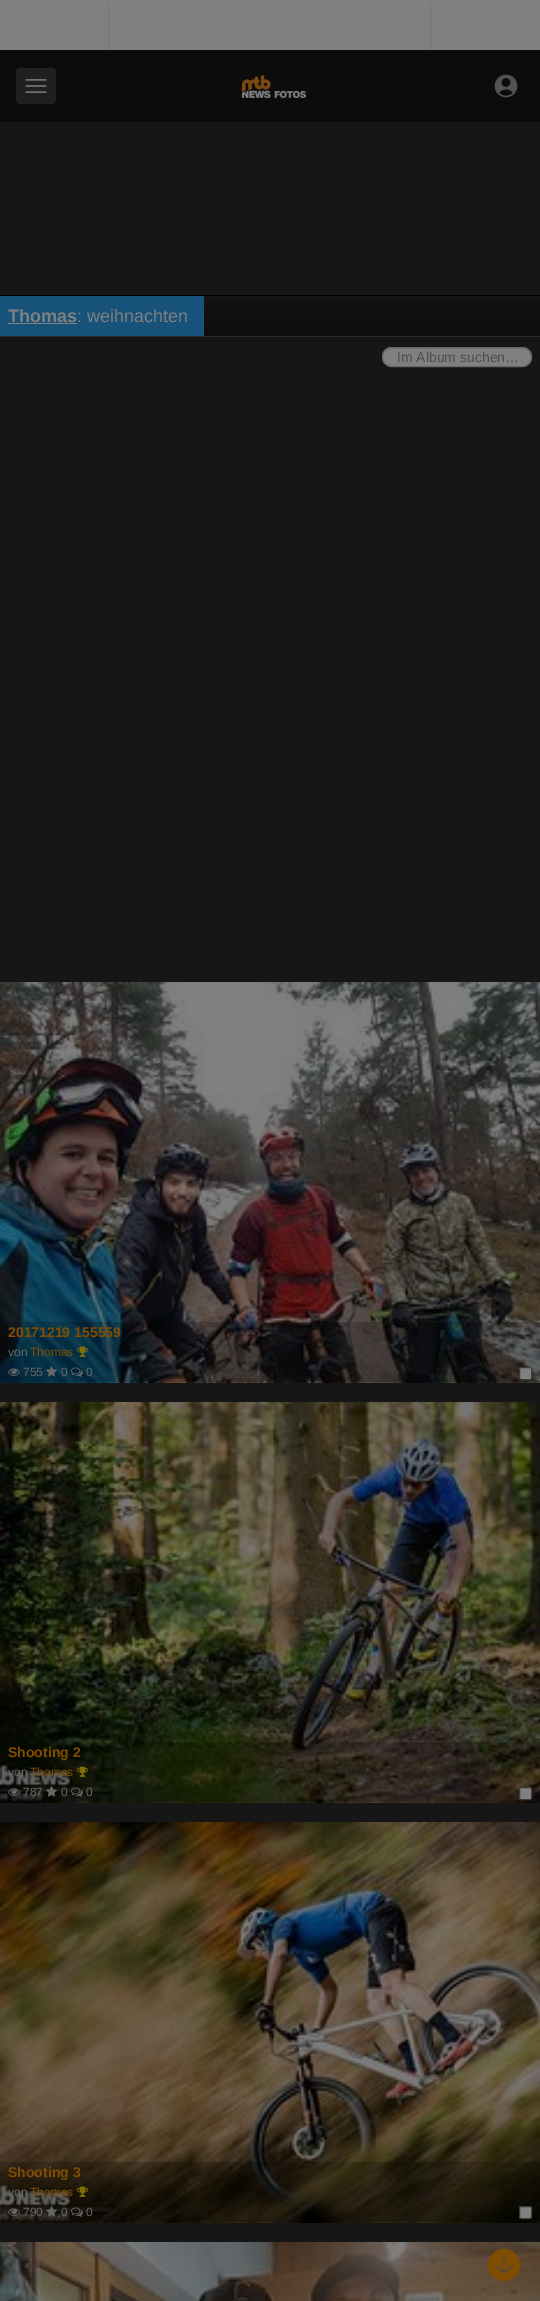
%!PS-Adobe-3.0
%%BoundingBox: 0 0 540 2301
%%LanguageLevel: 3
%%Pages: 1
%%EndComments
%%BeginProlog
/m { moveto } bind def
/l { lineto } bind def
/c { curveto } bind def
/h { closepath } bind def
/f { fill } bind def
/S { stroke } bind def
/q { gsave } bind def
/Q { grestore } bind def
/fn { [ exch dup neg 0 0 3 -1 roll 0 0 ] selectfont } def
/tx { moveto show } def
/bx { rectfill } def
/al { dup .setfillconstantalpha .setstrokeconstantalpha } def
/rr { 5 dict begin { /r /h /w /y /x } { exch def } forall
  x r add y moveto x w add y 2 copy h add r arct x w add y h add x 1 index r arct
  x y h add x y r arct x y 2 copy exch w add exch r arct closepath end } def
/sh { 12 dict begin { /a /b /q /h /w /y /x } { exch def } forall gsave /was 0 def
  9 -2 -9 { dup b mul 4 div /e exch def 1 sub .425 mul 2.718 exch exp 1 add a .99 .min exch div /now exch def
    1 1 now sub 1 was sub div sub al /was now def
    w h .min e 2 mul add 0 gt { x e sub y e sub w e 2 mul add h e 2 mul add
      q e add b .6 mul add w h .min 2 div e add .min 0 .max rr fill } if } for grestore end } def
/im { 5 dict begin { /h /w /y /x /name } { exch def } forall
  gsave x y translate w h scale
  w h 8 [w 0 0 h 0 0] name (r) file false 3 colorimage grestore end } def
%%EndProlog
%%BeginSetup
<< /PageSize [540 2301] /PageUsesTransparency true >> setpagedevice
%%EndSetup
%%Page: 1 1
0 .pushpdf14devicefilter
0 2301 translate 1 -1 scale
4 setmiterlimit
0.502 setgray
0 0 540 2301 bx
q
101 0 m 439 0 l 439 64 l 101 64 l h 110 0 m 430 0 l 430 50 l 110 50 l h eoclip newpath
0 setgray
110 5 320 50 0 2.5 0.1 sh
Q
0.047 setgray
0 50 540 72 bx
0.125 setgray
16 68 40 36 4 rr f
(image0.raw) 25 79 22 14 im
(image1.raw) 242 75 64 23 im
(image2.raw) 494 74 24 24 im
0.086 setgray
0 122 540 2120 bx
q 204 299 m 540 299 l 540 336 l 204 336 l h clip newpath
<< /ShadingType 2 /ColorSpace /DeviceRGB /Coords [270 296 270 336] /Extend [true true] /Function << /FunctionType 2 /Domain [0 1] /C0 [0.078 0.078 0.078] /C1 [0.051 0.051 0.051] /N 1 >> >> shfill Q
0 setgray
0 295 540 1 bx
0.165 setgray
0 336 540 1 bx
0.086 0.322 0.478 setrgbcolor
0 296 204 40 bx
/LiberationSans-Bold 18 fn
0.502 setgray
(Thomas) 8 322 tx
8 323 69 1 bx
/LiberationSans-Regular 18 fn
(: weihnachten) 77 322 tx
382 347 150 20 10 rr f
0.463 setgray
392 349 m 522 349 l 527 349 531 353 531 357 c 532 343 505 348 500 348 c 414 348 l 409 348 382 343 383 357 c 383 353 387 349 392 349 c h f
0.4 setgray
382.5 347.5 149 19 9.5 rr S
/LiberationSans-Regular 14 fn
0.302 setgray
(Im Album suchen…) 397 362 tx
(image3.raw) 0 982 540 401 im
0.2 al
0 setgray
0 1322 540 60 bx
/LiberationSans-Bold 14 fn
1 al
0.502 0.302 0 setrgbcolor
(20171219 155559) 8 1337 tx
/LiberationSans-Regular 12 fn
0.4 setgray
(von) 8 1356 tx
0.502 0.302 0 setrgbcolor
(Thomas) 30 1356 tx
(image4.raw) 77 1346 12 11 im
(image5.raw) 8 1368 12 8 im
0.4 setgray
(755) 23 1376 tx
(image6.raw) 46 1366 11 11 im
(0) 61 1376 tx
(image7.raw) 71 1367 12 10 im
(0) 86 1376 tx
0.502 setgray
519.5 1367.5 12 12 1.5 rr q f Q
0.231 setgray
S
(image8.raw) 0 1402 540 401 im
0.2 al
0 setgray
0 1742 540 60 bx
/LiberationSans-Bold 14 fn
1 al
0.502 0.302 0 setrgbcolor
(Shooting 2) 8 1757 tx
/LiberationSans-Regular 12 fn
0.4 setgray
(von) 8 1776 tx
0.502 0.302 0 setrgbcolor
(Thomas) 30 1776 tx
(image9.raw) 77 1766 12 11 im
(image10.raw) 8 1788 12 8 im
0.4 setgray
(787) 23 1796 tx
(image11.raw) 46 1786 11 11 im
(0) 61 1796 tx
(image12.raw) 71 1787 12 10 im
(0) 86 1796 tx
0.502 setgray
519.5 1787.5 12 12 1.5 rr q f Q
0.231 setgray
S
(image13.raw) 0 1822 540 401 im
0.2 al
0 setgray
0 2162 540 60 bx
/LiberationSans-Bold 14 fn
1 al
0.502 0.302 0 setrgbcolor
(Shooting 3) 8 2177 tx
/LiberationSans-Regular 12 fn
0.4 setgray
(von) 8 2196 tx
0.502 0.302 0 setrgbcolor
(Thomas) 30 2196 tx
(image14.raw) 77 2186 12 11 im
(image15.raw) 8 2208 12 8 im
0.4 setgray
(790) 23 2216 tx
(image16.raw) 46 2206 11 11 im
(0) 61 2216 tx
(image17.raw) 71 2207 12 10 im
(0) 86 2216 tx
0.502 setgray
519.5 2206.5 12 12 1.5 rr q f Q
0.231 setgray
S
(image18.raw) 0 2242 540 59 im
(image19.raw) 488 2249 32 32 im
.poppdf14devicefilter showpage
%%EOF
